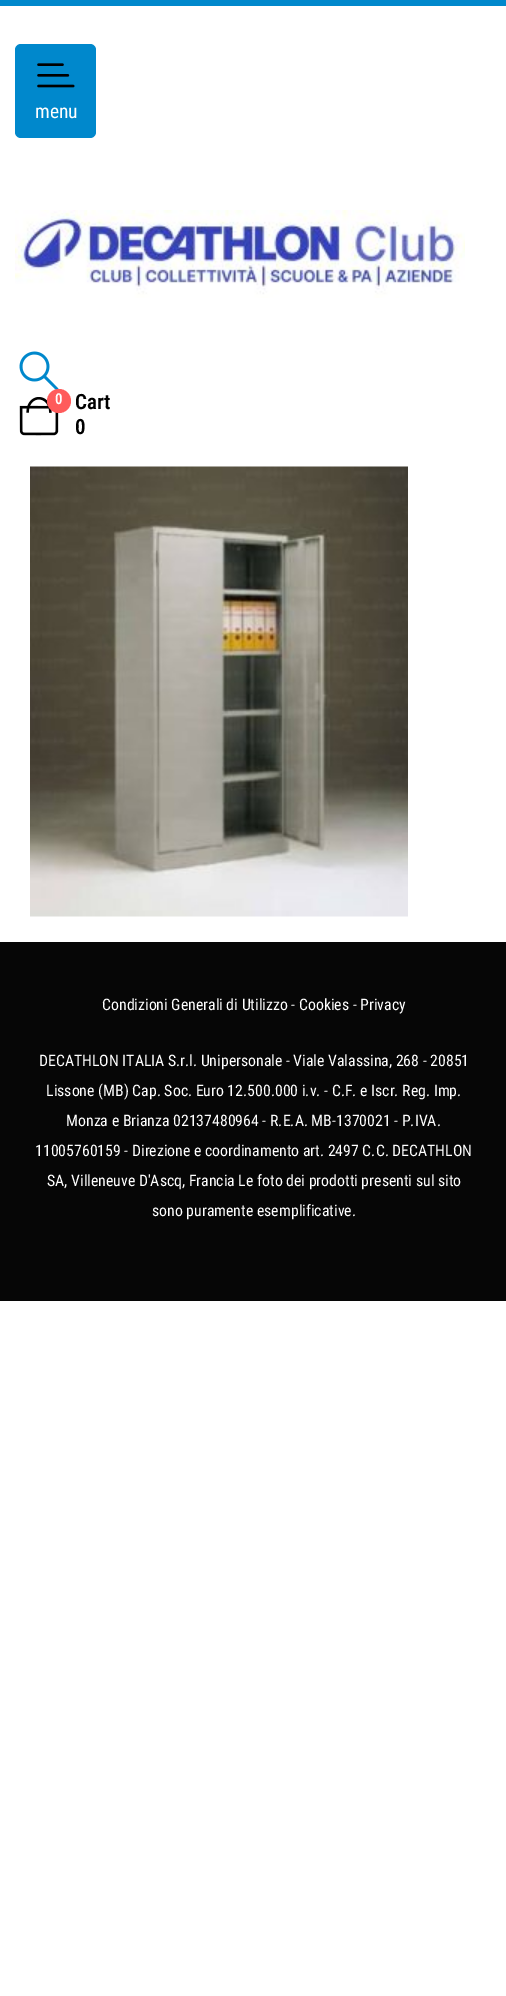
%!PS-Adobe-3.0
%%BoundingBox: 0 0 506 1996
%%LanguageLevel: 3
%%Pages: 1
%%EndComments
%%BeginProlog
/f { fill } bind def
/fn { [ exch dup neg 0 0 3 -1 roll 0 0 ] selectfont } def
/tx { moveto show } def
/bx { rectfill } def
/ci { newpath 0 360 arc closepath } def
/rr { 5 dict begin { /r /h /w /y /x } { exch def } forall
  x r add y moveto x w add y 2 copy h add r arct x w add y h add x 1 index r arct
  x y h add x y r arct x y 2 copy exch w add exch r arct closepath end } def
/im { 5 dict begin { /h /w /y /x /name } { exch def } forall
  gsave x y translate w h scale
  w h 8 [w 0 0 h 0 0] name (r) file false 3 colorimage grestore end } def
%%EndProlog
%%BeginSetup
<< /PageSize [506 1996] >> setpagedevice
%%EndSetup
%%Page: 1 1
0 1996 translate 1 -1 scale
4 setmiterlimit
1 setgray
0 0 506 1996 bx
0 0.533 0.8 setrgbcolor
0 0 506 6 bx
15 44 81 94 6 rr f
(image0.raw) 37 63 38 25 im
/RobotoCondensed-Regular 19.5 fn
1 setgray
(menu) 35 118 tx
(image1.raw) 15 210 450 88 im
(image2.raw) 19 351 40 39 im
(image3.raw) 19 397 40 39 im
1 0.357 0.357 setrgbcolor
59 401 12 ci f
/RobotoCondensed-SemiBold 15 fn
1 setgray
(0) 55 404 tx
/RobotoCondensed-SemiBold 21 fn
0 setgray
(Cart) 75 409 tx
(0) 75 434 tx
(image4.raw) 30 466 378 451 im
0.024 setgray
0 942 506 359 bx
/RobotoCondensed-Regular 15.8 fn
1 setgray
(Condizioni Generali di Utilizzo - Cookies - Privacy) 102 1010 tx
(DECATHLON ITALIA S.r.l. Unipersonale - Viale Valassina, 268 - 20851) 39 1066 tx
(Lissone \(MB\) Cap. Soc. Euro 12.500.000 i.v. - C.F. e Iscr. Reg. Imp.) 46 1096 tx
(Monza e Brianza 02137480964 - R.E.A. MB-1370021 - P.IVA.) 66 1126 tx
(11005760159 - Direzione e coordinamento art. 2497 C.C. DECATHLON) 35 1156 tx
(SA, Villeneuve D'Ascq, Francia Le foto dei prodotti presenti sul sito) 47 1186 tx
(sono puramente esemplificative.) 152 1216 tx
showpage
%%EOF
